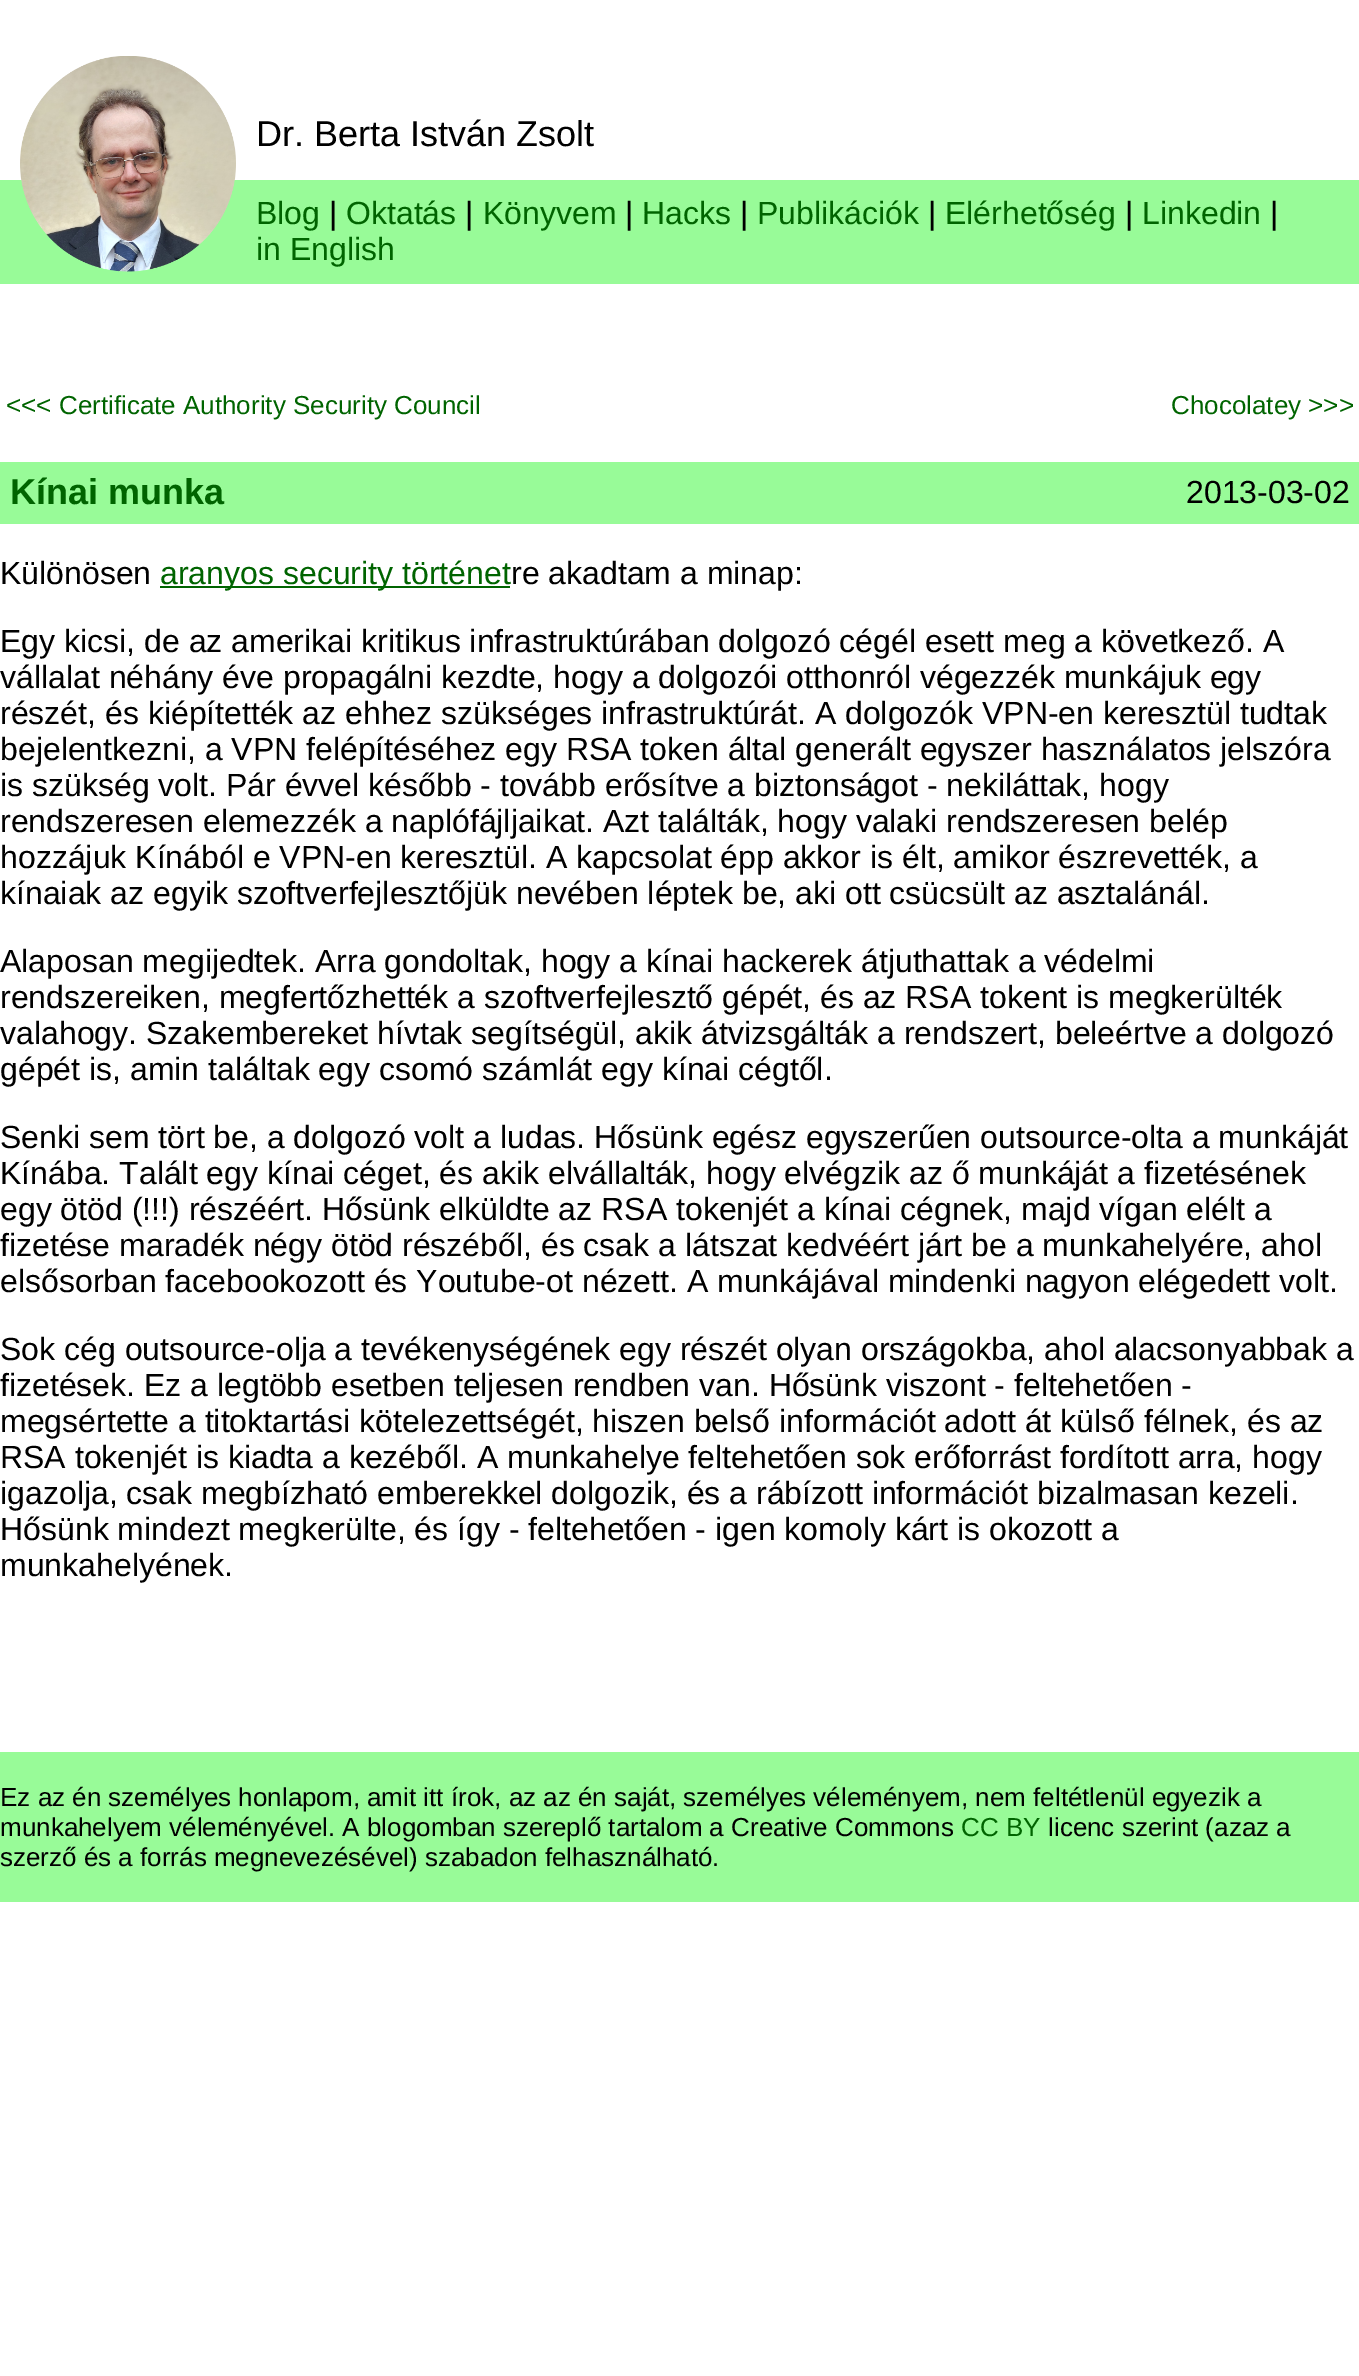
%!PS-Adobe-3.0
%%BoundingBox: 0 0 1359 2376
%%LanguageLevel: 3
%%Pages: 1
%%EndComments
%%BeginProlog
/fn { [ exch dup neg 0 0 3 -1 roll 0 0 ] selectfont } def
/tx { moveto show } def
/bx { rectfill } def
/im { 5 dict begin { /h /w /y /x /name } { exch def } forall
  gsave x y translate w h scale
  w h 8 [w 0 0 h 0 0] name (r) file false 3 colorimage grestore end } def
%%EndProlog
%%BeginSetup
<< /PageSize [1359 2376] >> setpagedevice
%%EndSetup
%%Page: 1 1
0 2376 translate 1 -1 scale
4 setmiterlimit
1 setgray
0 0 1359 2376 bx
0.596 0.984 0.596 setrgbcolor
0 180 1359 104 bx
(image0.raw) 20 56 216 216 im
/LiberationSans-Regular 36 fn
0 setgray
(Dr. Berta István Zsolt) 256 146 tx
/LiberationSans-Regular 32 fn
0 0.392 0 setrgbcolor
(Blog) 256 224 tx
0 setgray
(|) 329 224 tx
0 0.392 0 setrgbcolor
(Oktatás) 346 224 tx
0 setgray
(|) 465 224 tx
0 0.392 0 setrgbcolor
(Könyvem) 483 224 tx
0 setgray
(|) 625 224 tx
0 0.392 0 setrgbcolor
(Hacks) 642 224 tx
0 setgray
(|) 740 224 tx
0 0.392 0 setrgbcolor
(Publikációk) 757 224 tx
0 setgray
(|) 928 224 tx
0 0.392 0 setrgbcolor
(Elérhetőség) 945 224 tx
0 setgray
(|) 1125 224 tx
0 0.392 0 setrgbcolor
(Linkedin) 1142 224 tx
0 setgray
(|) 1270 224 tx
0 0.392 0 setrgbcolor
(in English) 256 260 tx
/LiberationSans-Regular 26 fn
(<<< Certificate Authority Security Council) 6 414 tx
(Chocolatey >>>) 1171 414 tx
0.596 0.984 0.596 setrgbcolor
0 462 1359 62 bx
/LiberationSans-Bold 36 fn
0 0.392 0 setrgbcolor
(Kínai munka) 10 504 tx
/LiberationSans-Regular 32 fn
0 setgray
(2013-03-02) 1186 503 tx
(Különösen) 0 584 tx
0 0.392 0 setrgbcolor
160 586 350 2 bx
(aranyos security történet) 160 584 tx
0 setgray
(re akadtam a minap:) 511 584 tx
(Egy kicsi, de az amerikai kritikus infrastruktúrában dolgozó cégél esett meg a következő. A) 0 652 tx
(vállalat néhány éve propagálni kezdte, hogy a dolgozói otthonról végezzék munkájuk egy) 0 688 tx
(részét, és kiépítették az ehhez szükséges infrastruktúrát. A dolgozók VPN-en keresztül tudtak) 0 724 tx
(bejelentkezni, a VPN felépítéséhez egy RSA token által generált egyszer használatos jelszóra) 0 760 tx
(is szükség volt. Pár évvel később - tovább erősítve a biztonságot - nekiláttak, hogy) 0 796 tx
(rendszeresen elemezzék a naplófájljaikat. Azt találták, hogy valaki rendszeresen belép) 0 832 tx
(hozzájuk Kínából e VPN-en keresztül. A kapcsolat épp akkor is élt, amikor észrevették, a) 0 868 tx
(kínaiak az egyik szoftverfejlesztőjük nevében léptek be, aki ott csücsült az asztalánál.) 0 904 tx
(Alaposan megijedtek. Arra gondoltak, hogy a kínai hackerek átjuthattak a védelmi) 0 972 tx
(rendszereiken, megfertőzhették a szoftverfejlesztő gépét, és az RSA tokent is megkerülték) 0 1008 tx
(valahogy. Szakembereket hívtak segítségül, akik átvizsgálták a rendszert, beleértve a dolgozó) 0 1044 tx
(gépét is, amin találtak egy csomó számlát egy kínai cégtől.) 0 1080 tx
(Senki sem tört be, a dolgozó volt a ludas. Hősünk egész egyszerűen outsource-olta a munkáját) 0 1148 tx
(Kínába. Talált egy kínai céget, és akik elvállalták, hogy elvégzik az ő munkáját a fizetésének) 0 1184 tx
(egy ötöd \(!!!\) részéért. Hősünk elküldte az RSA tokenjét a kínai cégnek, majd vígan elélt a) 0 1220 tx
(fizetése maradék négy ötöd részéből, és csak a látszat kedvéért járt be a munkahelyére, ahol) 0 1256 tx
(elsősorban facebookozott és Youtube-ot nézett. A munkájával mindenki nagyon elégedett volt.) 0 1292 tx
(Sok cég outsource-olja a tevékenységének egy részét olyan országokba, ahol alacsonyabbak a) 0 1360 tx
(fizetések. Ez a legtöbb esetben teljesen rendben van. Hősünk viszont - feltehetően -) 0 1396 tx
(megsértette a titoktartási kötelezettségét, hiszen belső információt adott át külső félnek, és az) 0 1432 tx
(RSA tokenjét is kiadta a kezéből. A munkahelye feltehetően sok erőforrást fordított arra, hogy) 0 1468 tx
(igazolja, csak megbízható emberekkel dolgozik, és a rábízott információt bizalmasan kezeli.) 0 1504 tx
(Hősünk mindezt megkerülte, és így - feltehetően - igen komoly kárt is okozott a) 0 1540 tx
(munkahelyének.) 0 1576 tx
0.596 0.984 0.596 setrgbcolor
0 1752 1359 150 bx
/LiberationSans-Regular 26 fn
0 setgray
(Ez az én személyes honlapom, amit itt írok, az az én saját, személyes véleményem, nem feltétlenül egyezik a) 0 1806 tx
(munkahelyem véleményével. A blogomban szereplő tartalom a Creative Commons) 0 1836 tx
0 0.392 0 setrgbcolor
(CC BY) 961 1836 tx
0 setgray
(licenc szerint \(azaz a) 1048 1836 tx
(szerző és a forrás megnevezésével\) szabadon felhasználható.) 0 1866 tx
showpage
%%EOF
